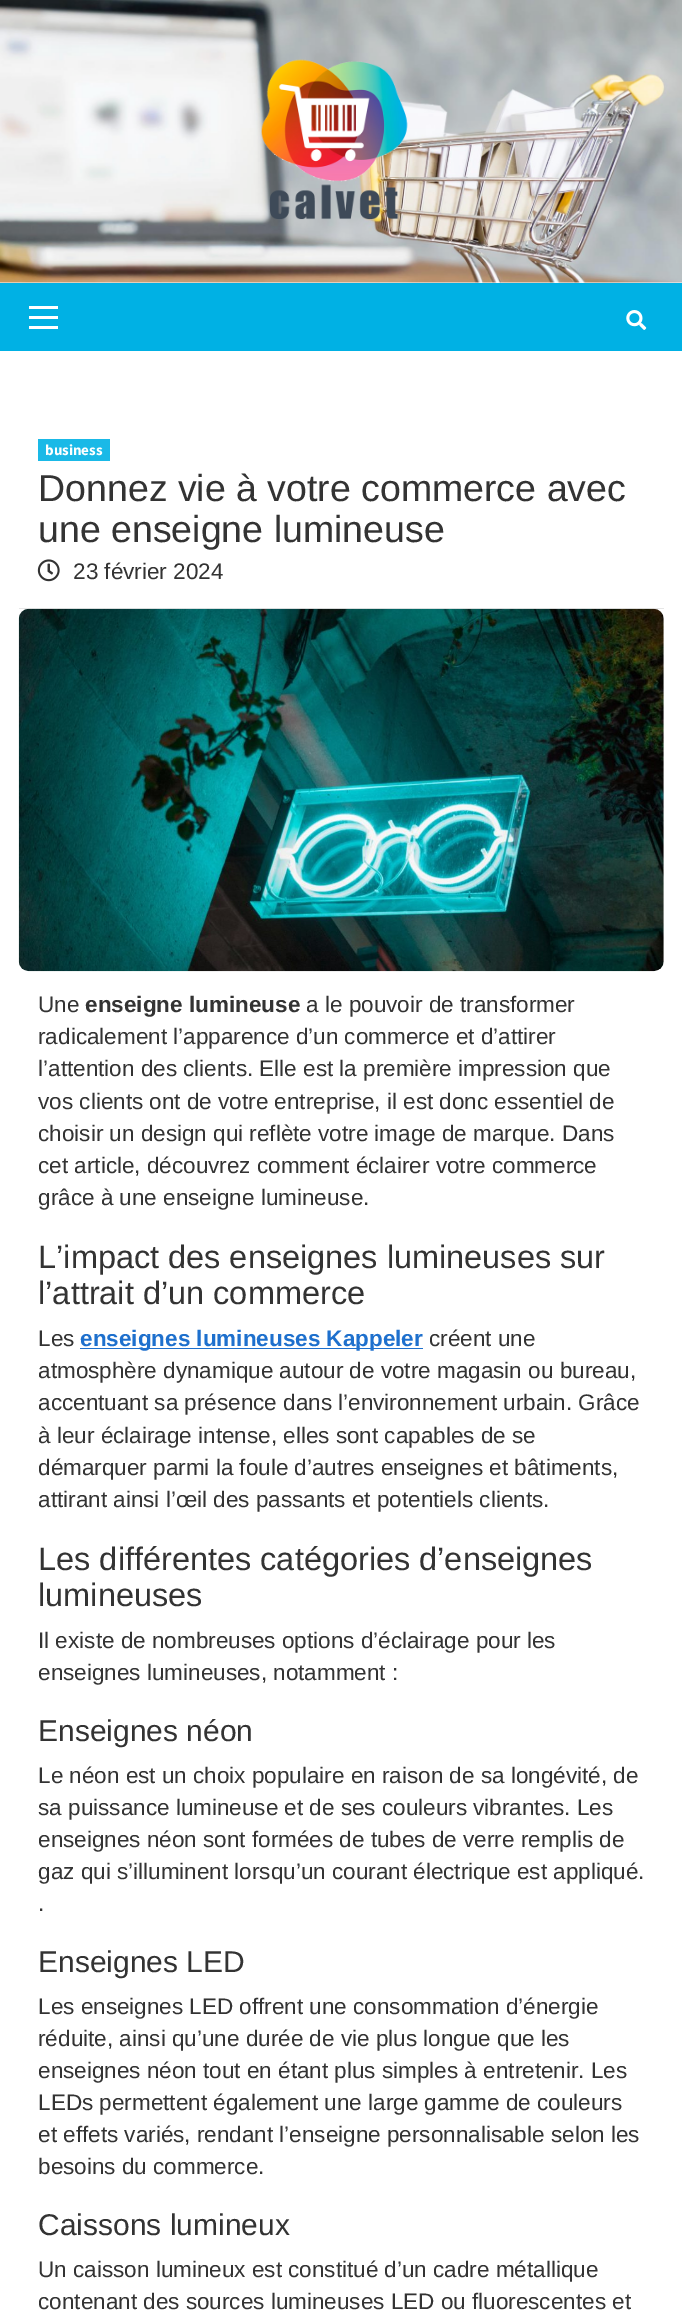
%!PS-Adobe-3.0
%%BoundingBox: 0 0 682 2323
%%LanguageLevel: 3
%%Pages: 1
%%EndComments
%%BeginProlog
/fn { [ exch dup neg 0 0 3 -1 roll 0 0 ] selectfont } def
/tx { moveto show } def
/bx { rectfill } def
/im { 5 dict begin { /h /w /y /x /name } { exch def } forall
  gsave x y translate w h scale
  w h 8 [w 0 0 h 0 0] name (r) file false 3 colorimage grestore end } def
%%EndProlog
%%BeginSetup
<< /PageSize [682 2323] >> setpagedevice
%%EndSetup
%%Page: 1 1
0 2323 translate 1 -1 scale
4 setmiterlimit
1 setgray
0 0 682 2323 bx
(image0.raw) 0 0 682 283 im
(image1.raw) 261 59 147 161 im
0 0.694 0.894 setrgbcolor
0 283 682 68 bx
1 setgray
29 316 29 3 bx
29 306 29 3 bx
29 326 29 3 bx
(image2.raw) 626 310 21 20 im
0.902 setgray
19 608 645 1 bx
0.102 0.725 0.906 setrgbcolor
38 439 72 22 bx
/SourceSansPro-Bold 15 fn
1 setgray
(business) 45 455 tx
/LiberationSans-Regular 37.5 fn
0.2 setgray
(Donnez vie à votre commerce avec) 38 501 tx
(une enseigne lumineuse) 38 542 tx
(image3.raw) 37 559 23 23 im
/LiberationSans-Regular 22.5 fn
(23 février 2024) 73 579 tx
(image4.raw) 18 608 646 364 im
(Une) 38 1012 tx
/LiberationSans-Bold 22.5 fn
(enseigne lumineuse) 85 1012 tx
/LiberationSans-Regular 22.5 fn
(a le pouvoir de transformer) 306 1012 tx
(radicalement l’apparence d’un commerce et d’attirer) 38 1044 tx
(l’attention des clients. Elle est la première impression que) 38 1076 tx
(vos clients ont de votre entreprise, il est donc essentiel de) 38 1109 tx
(choisir un design qui reflète votre image de marque. Dans) 38 1141 tx
(cet article, découvrez comment éclairer votre commerce) 38 1173 tx
(grâce à une enseigne lumineuse.) 38 1205 tx
/LiberationSans-Regular 32.5 fn
(L’impact des enseignes lumineuses sur) 38 1268 tx
(l’attrait d’un commerce) 38 1304 tx
/LiberationSans-Regular 22.5 fn
(Les) 38 1346 tx
0.118 0.439 0.804 setrgbcolor
80 1348 343 1 bx
/LiberationSans-Bold 22.5 fn
(enseignes lumineuses Kappeler) 80 1346 tx
/LiberationSans-Regular 22.5 fn
0.2 setgray
(créent une) 429 1346 tx
(atmosphère dynamique autour de votre magasin ou bureau,) 38 1378 tx
(accentuant sa présence dans l’environnement urbain. Grâce) 38 1410 tx
(à leur éclairage intense, elles sont capables de se) 38 1443 tx
(démarquer parmi la foule d’autres enseignes et bâtiments,) 38 1475 tx
(attirant ainsi l’œil des passants et potentiels clients.) 38 1507 tx
/LiberationSans-Regular 32.5 fn
(Les différentes catégories d’enseignes) 38 1570 tx
(lumineuses) 38 1606 tx
/LiberationSans-Regular 22.5 fn
(Il existe de nombreuses options d’éclairage pour les) 38 1648 tx
(enseignes lumineuses, notamment :) 38 1680 tx
/LiberationSans-Regular 30 fn
(Enseignes néon) 38 1741 tx
/LiberationSans-Regular 22.5 fn
(Le néon est un choix populaire en raison de sa longévité, de) 38 1783 tx
(sa puissance lumineuse et de ses couleurs vibrantes. Les) 38 1815 tx
(enseignes néon sont formées de tubes de verre remplis de) 38 1847 tx
(gaz qui s’illuminent lorsqu’un courant électrique est appliqué.) 38 1879 tx
(.) 38 1911 tx
/LiberationSans-Regular 30 fn
(Enseignes LED) 38 1972 tx
/LiberationSans-Regular 22.5 fn
(Les enseignes LED offrent une consommation d’énergie) 38 2014 tx
(réduite, ainsi qu’une durée de vie plus longue que les) 38 2046 tx
(enseignes néon tout en étant plus simples à entretenir. Les) 38 2078 tx
(LEDs permettent également une large gamme de couleurs) 38 2110 tx
(et effets variés, rendant l’enseigne personnalisable selon les) 38 2142 tx
(besoins du commerce.) 38 2174 tx
/LiberationSans-Regular 30 fn
(Caissons lumineux) 38 2235 tx
/LiberationSans-Regular 22.5 fn
(Un caisson lumineux est constitué d’un cadre métallique) 38 2277 tx
(contenant des sources lumineuses LED ou fluorescentes et) 38 2309 tx
showpage
%%EOF
